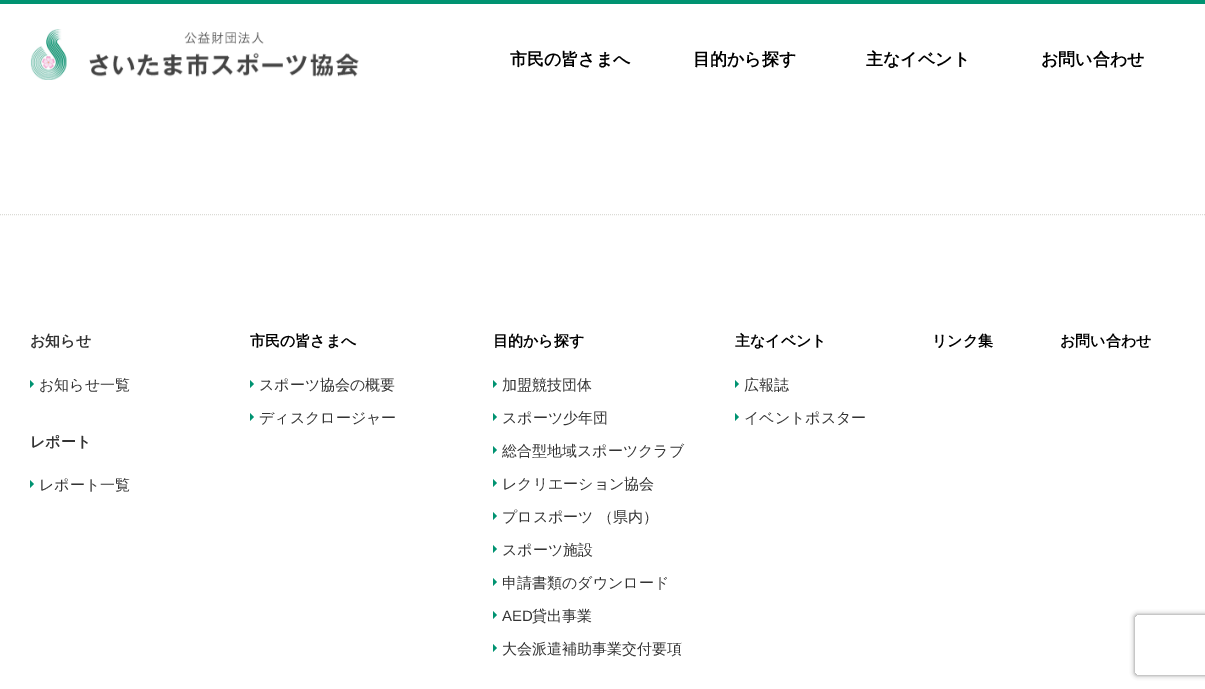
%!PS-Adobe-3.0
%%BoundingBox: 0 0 1205 689
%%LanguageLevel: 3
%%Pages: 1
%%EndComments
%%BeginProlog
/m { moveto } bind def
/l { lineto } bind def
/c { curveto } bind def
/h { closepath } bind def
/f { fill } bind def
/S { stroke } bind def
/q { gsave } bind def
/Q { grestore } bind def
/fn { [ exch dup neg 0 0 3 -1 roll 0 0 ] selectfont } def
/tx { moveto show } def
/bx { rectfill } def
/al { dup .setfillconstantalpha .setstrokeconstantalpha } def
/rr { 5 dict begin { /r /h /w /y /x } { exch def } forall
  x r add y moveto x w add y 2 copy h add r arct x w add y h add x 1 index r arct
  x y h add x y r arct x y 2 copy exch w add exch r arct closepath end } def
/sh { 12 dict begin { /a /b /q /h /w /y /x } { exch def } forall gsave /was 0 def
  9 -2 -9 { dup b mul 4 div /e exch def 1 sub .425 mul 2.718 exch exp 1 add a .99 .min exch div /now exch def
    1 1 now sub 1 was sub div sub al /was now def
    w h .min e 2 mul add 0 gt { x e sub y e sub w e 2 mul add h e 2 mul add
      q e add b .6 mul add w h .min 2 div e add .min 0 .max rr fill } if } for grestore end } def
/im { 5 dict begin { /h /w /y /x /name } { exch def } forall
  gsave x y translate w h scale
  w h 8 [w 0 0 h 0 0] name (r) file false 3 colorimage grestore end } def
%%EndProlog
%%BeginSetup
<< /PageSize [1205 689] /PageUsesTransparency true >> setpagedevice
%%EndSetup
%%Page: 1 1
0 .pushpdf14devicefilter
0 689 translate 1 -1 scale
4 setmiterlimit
1 setgray
0 0 1205 689 bx
0 0.576 0.443 setrgbcolor
0 0 1205 4 bx
(image0.raw) 30 29 329 51 im
/WenQuanYiZenHei-Bold 17 fn
0 setgray
(市民の皆さまへ) 510 65 tx
(目的から探す) 693 65 tx
(主なイベント) 866 65 tx
(お問い合わせ) 1041 65 tx
0.859 0.859 0.839 setrgbcolor
[1 1] 0 setdash
0 214.5 m 1205 214.5 l S
/WenQuanYiZenHei-Bold 15 fn
0.2 setgray
(お知らせ) 30 346 tx
0 0.576 0.443 setrgbcolor
30 388 m 30 380 l 34 384 l h f
/WenQuanYiZenHei-Medium 15 fn
0.2 setgray
(お知らせ一覧) 39 390 tx
/WenQuanYiZenHei-Bold 15 fn
(レポート) 30 447 tx
0 0.576 0.443 setrgbcolor
30 488 m 30 480 l 34 484 l h f
/WenQuanYiZenHei-Medium 15 fn
0.2 setgray
(レポート一覧) 39 490 tx
/WenQuanYiZenHei-Bold 15 fn
0 setgray
(市民の皆さまへ) 250 346 tx
0 0.576 0.443 setrgbcolor
250 388 m 250 380 l 254 384 l h f
/WenQuanYiZenHei-Medium 15 fn
0.2 setgray
(スポーツ協会の概要) 259 390 tx
0 0.576 0.443 setrgbcolor
250 421 m 250 413 l 254 417 l h f
0.2 setgray
(ディスクロージャー) 259 423 tx
/WenQuanYiZenHei-Bold 15 fn
0 setgray
(目的から探す) 493 346 tx
0 0.576 0.443 setrgbcolor
493 388 m 493 380 l 497 384 l h f
/WenQuanYiZenHei-Medium 15 fn
0.2 setgray
(加盟競技団体) 502 390 tx
0 0.576 0.443 setrgbcolor
493 421 m 493 413 l 497 417 l h f
0.2 setgray
(スポーツ少年団) 502 423 tx
0 0.576 0.443 setrgbcolor
493 454 m 493 446 l 497 450 l h f
0.2 setgray
(総合型地域スポーツクラブ) 502 456 tx
0 0.576 0.443 setrgbcolor
493 487 m 493 479 l 497 483 l h f
0.2 setgray
(レクリエーション協会) 502 489 tx
0 0.576 0.443 setrgbcolor
493 520 m 493 512 l 497 516 l h f
0.2 setgray
(プロスポーツ （県内）) 502 522 tx
0 0.576 0.443 setrgbcolor
493 553 m 493 545 l 497 549 l h f
0.2 setgray
(スポーツ施設) 502 555 tx
0 0.576 0.443 setrgbcolor
493 586 m 493 578 l 497 582 l h f
0.2 setgray
(申請書類のダウンロード) 502 588 tx
0 0.576 0.443 setrgbcolor
493 619 m 493 611 l 497 615 l h f
/LiberationSans-Regular 15 fn
0.2 setgray
(AED) 502 621 tx
/WenQuanYiZenHei-Medium 15 fn
(貸出事業) 532 621 tx
0 0.576 0.443 setrgbcolor
493 652 m 493 644 l 497 648 l h f
0.2 setgray
(大会派遣補助事業交付要項) 502 654 tx
/WenQuanYiZenHei-Bold 15 fn
0 setgray
(主なイベント) 735 346 tx
0 0.576 0.443 setrgbcolor
735 388 m 735 380 l 739 384 l h f
/WenQuanYiZenHei-Medium 15 fn
0.2 setgray
(広報誌) 744 390 tx
0 0.576 0.443 setrgbcolor
735 421 m 735 413 l 739 417 l h f
0.2 setgray
(イベントポスター) 744 423 tx
/WenQuanYiZenHei-Bold 15 fn
0 setgray
(リンク集) 932 346 tx
(お問い合わせ) 1060 346 tx
q
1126 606 m 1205 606 l 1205 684 l 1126 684 l h 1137 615 m 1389 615 l 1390 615 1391 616 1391 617 c 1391 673 l 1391 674 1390 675 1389 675 c 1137 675 l 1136 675 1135 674 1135 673 c 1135 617 l 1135 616 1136 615 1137 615 c h eoclip newpath
0.502 setgray
1135 615 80 60 2 2.5 1 sh
Q
.poppdf14devicefilter showpage
%%EOF
